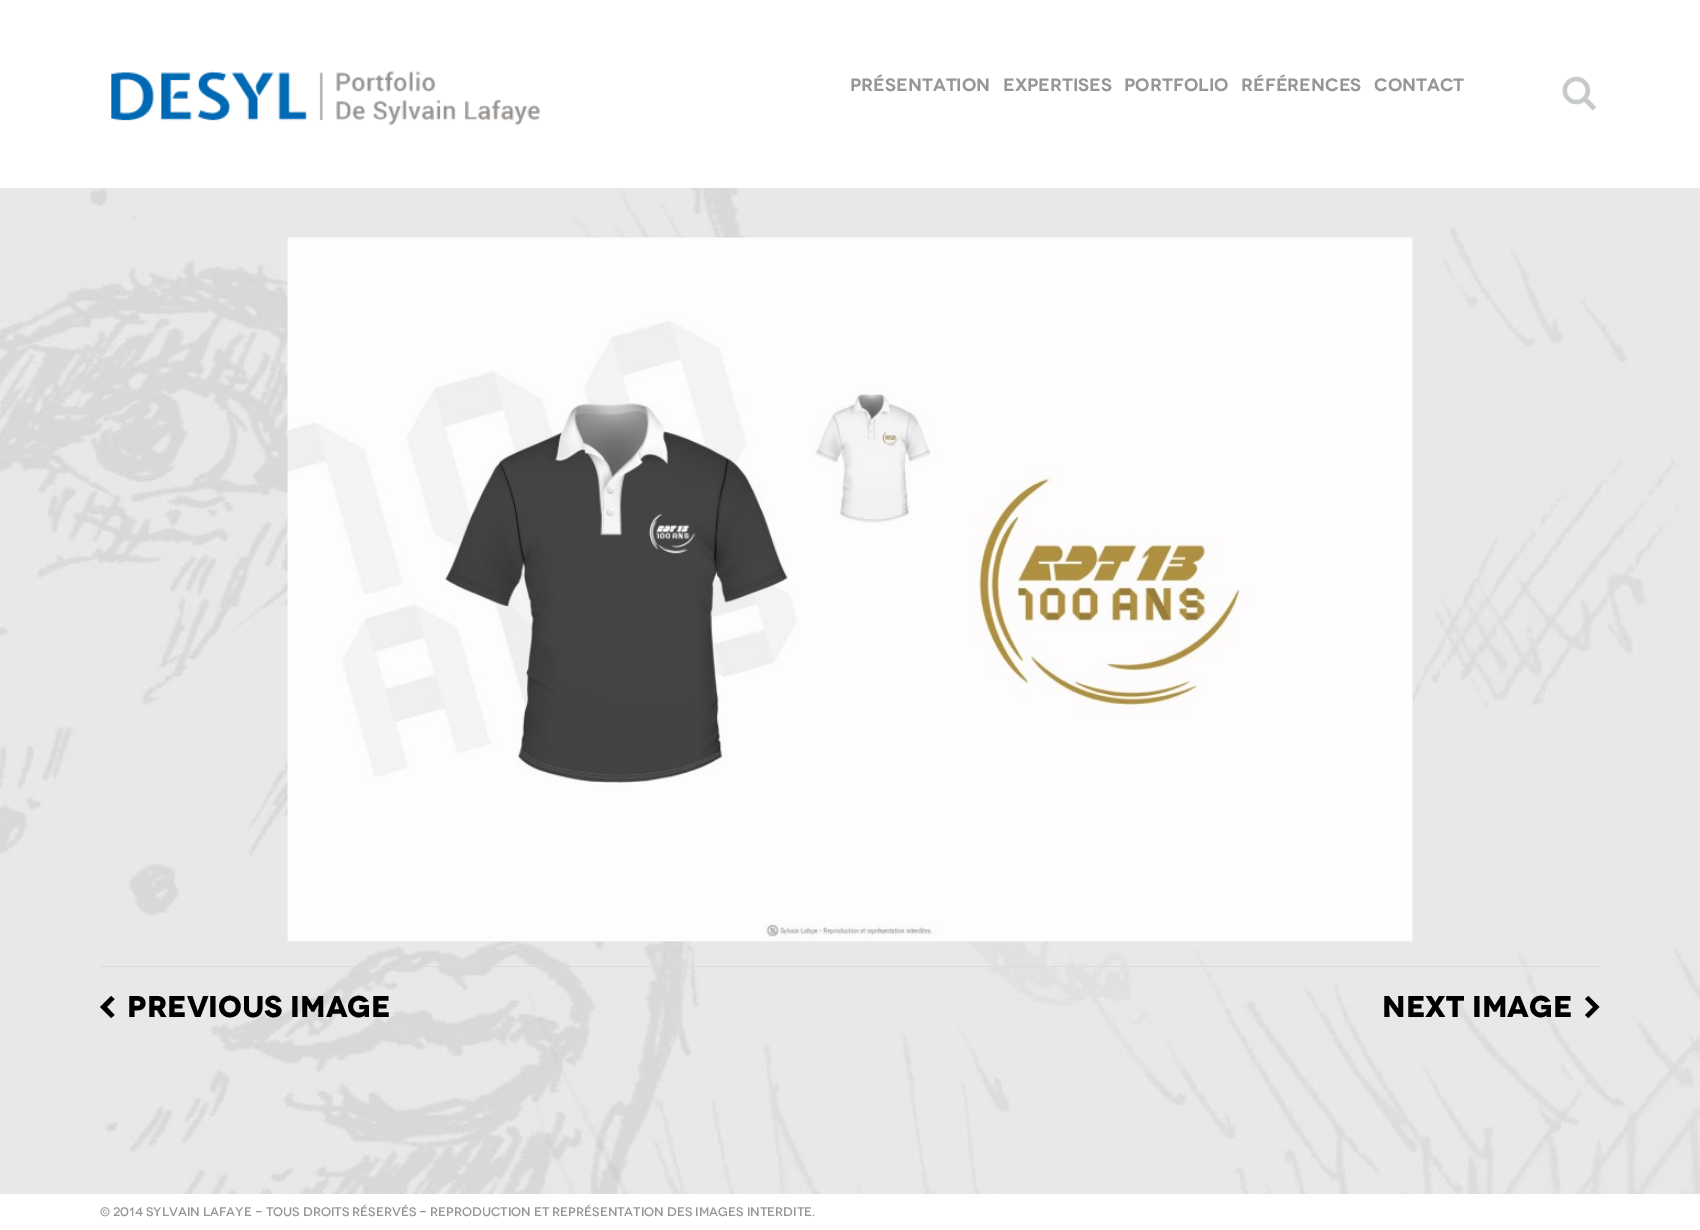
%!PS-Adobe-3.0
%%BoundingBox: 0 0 1700 1230
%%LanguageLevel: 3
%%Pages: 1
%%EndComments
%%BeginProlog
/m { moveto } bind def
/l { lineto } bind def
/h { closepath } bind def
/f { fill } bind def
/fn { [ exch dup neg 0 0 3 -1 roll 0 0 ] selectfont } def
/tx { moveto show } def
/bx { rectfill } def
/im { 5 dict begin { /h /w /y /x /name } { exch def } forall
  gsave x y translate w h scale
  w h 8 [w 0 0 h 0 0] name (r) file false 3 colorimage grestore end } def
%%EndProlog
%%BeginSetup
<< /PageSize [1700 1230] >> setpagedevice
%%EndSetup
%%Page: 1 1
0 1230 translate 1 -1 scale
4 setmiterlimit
1 setgray
0 0 1700 1230 bx
(image0.raw) 0 188 1700 1006 im
(image1.raw) 111 71 430 55 im
/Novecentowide-SemiBold 18 fn
0.588 setgray
(PRÉSENTATION) 850 91 tx
(EXPERTISES) 1003 91 tx
(PORTFOLIO) 1124 91 tx
(RÉFÉRENCES) 1241 91 tx
(CONTACT) 1374 91 tx
(image2.raw) 1562 76 34 35 im
(image3.raw) 287 237 1126 705 im
0.851 0.863 0.867 setrgbcolor
100 966 1500 1 bx
0 setgray
107 1007 m 114.5 1015 l 111 1018 l 100 1007 l 111 996 l 114.5 999 l h f
/Novecentowide-Bold 30 fn
(PREVIOUS IMAGE) 127 1017 tx
(NEXT IMAGE) 1382 1017 tx
1588.5 996 m 1599.5 1007 l 1588.5 1018 l 1585 1015 l 1593 1007 l 1585 999 l h f
/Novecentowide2-SemiBold 12.42 fn
0.588 setgray
(© 2014 Sylvain Lafaye - Tous droits réservés - Reproduction et représentation des images interdite.) 100 1216 tx
showpage
%%EOF
